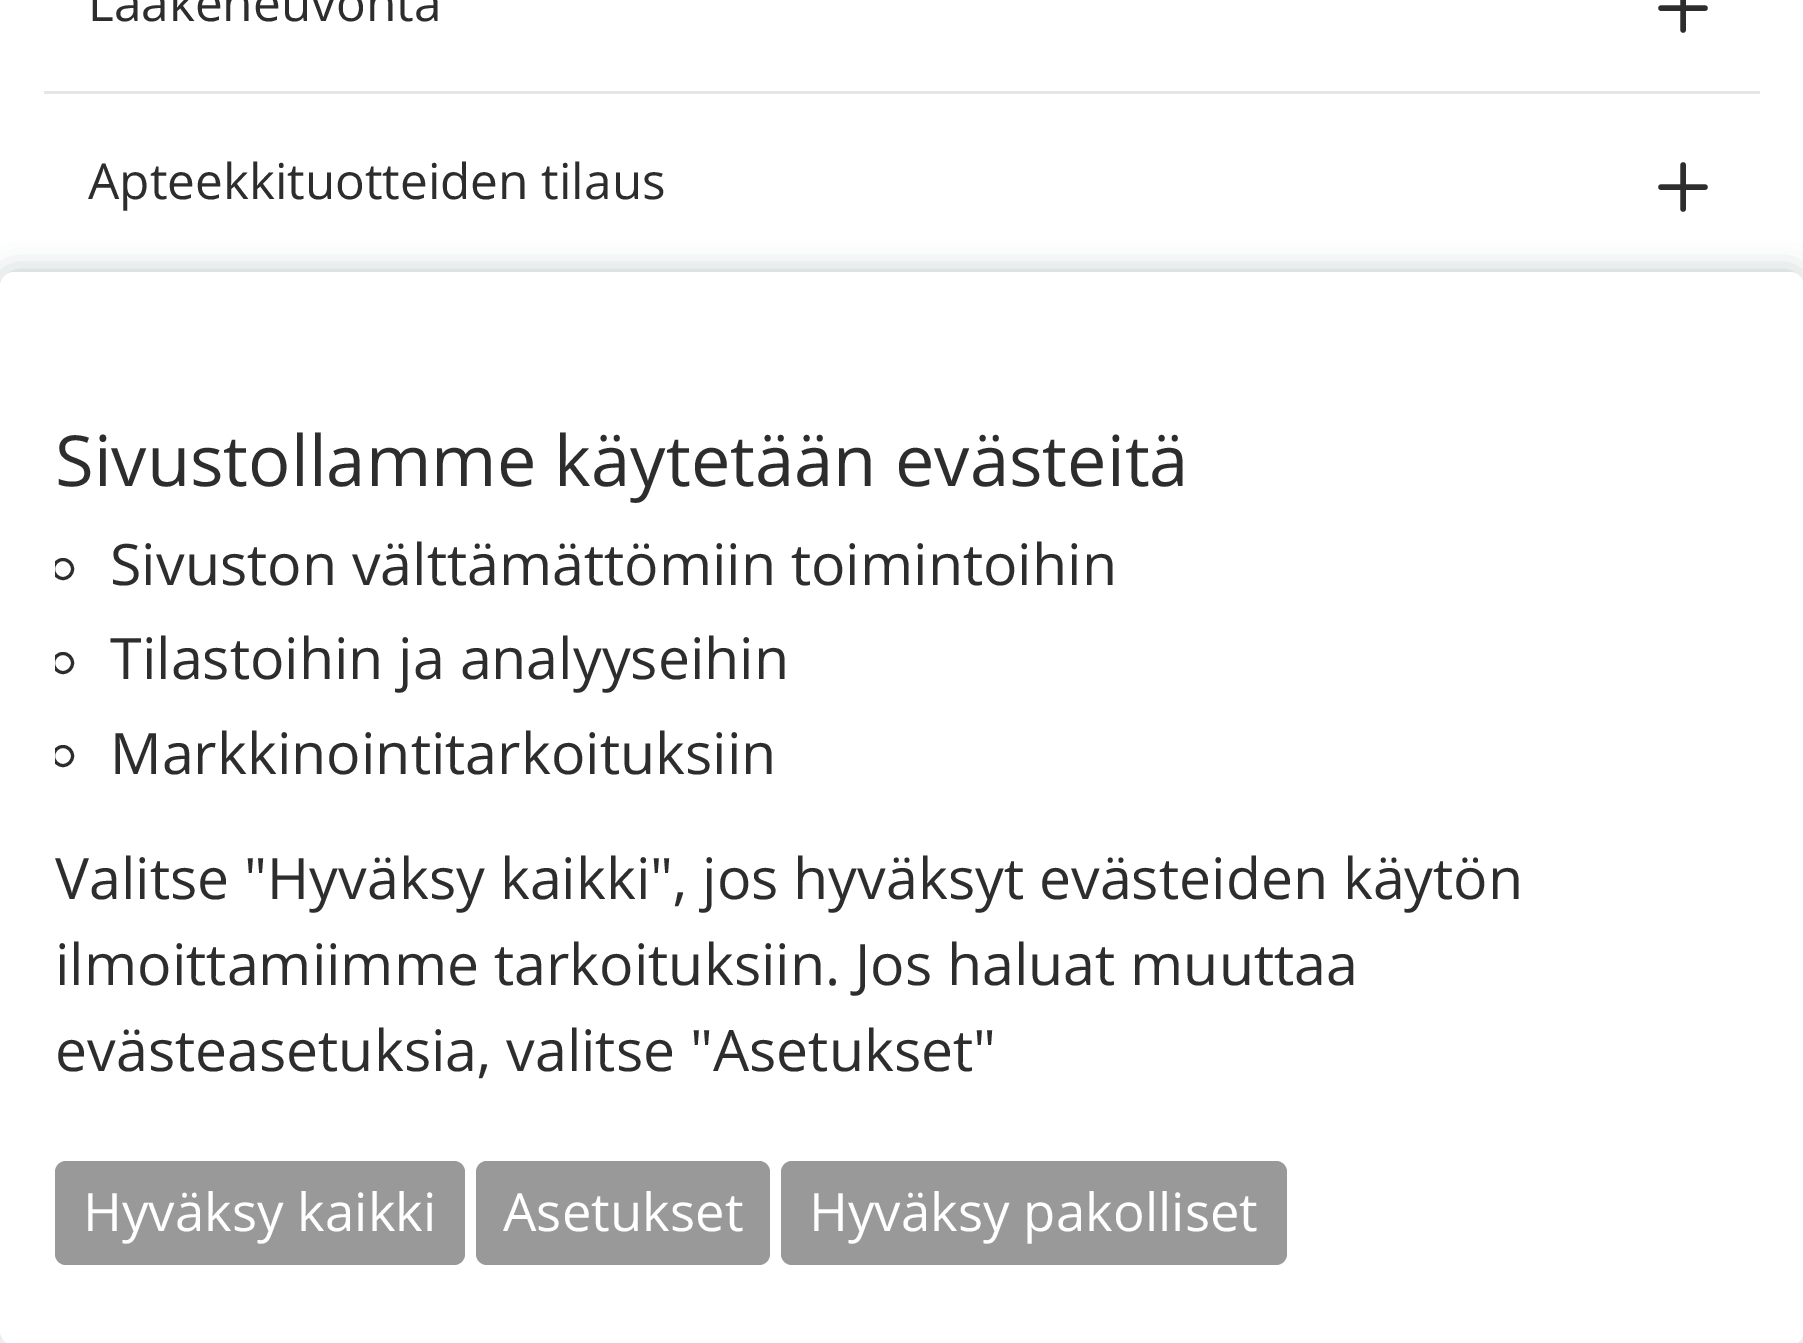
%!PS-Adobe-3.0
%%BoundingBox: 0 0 1803 1343
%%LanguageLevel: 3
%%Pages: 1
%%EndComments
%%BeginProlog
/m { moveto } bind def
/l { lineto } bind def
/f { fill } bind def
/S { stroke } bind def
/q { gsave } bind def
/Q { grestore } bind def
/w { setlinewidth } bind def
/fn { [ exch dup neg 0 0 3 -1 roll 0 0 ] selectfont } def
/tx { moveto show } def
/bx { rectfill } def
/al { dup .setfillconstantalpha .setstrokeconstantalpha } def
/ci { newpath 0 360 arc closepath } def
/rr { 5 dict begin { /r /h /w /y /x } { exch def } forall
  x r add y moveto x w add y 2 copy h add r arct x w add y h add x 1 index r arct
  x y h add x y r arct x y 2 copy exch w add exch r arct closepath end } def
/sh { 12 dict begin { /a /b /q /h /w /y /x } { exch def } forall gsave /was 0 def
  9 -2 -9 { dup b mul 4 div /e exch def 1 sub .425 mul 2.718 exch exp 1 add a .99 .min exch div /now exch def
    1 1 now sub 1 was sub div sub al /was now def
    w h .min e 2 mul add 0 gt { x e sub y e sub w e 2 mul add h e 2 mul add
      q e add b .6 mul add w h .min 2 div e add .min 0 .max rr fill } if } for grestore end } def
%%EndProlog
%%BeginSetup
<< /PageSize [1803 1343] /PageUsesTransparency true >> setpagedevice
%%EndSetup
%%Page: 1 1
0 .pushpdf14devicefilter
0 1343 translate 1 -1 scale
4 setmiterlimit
1 setgray
0 0 1803 1343 bx
0.902 setgray
44 91 1716 3 bx
/OpenSans-Regular 49.5 fn
0.176 setgray
(Lääkeneuvonta) 88 21 tx
5.5 w
1 setlinecap
1 setlinejoin
1683 -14 m 1683 30 l 1705 8 m 1661 8 l S
(Apteekkituotteiden tilaus) 88 199 tx
1683 165 m 1683 209 l 1705 187 m 1661 187 l S
0.329 0.455 0.471 setrgbcolor
0 272 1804 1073 14 14 0.4 sh
1 setgray
0 272 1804 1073 14 rr f
/OpenSans-Regular 70.4 fn
0.176 setgray
(Sivustollamme käytetään evästeitä) 55 486 tx
q
55 523 1694 638 rectclip
3 w
0 setlinecap
0 setlinejoin
63 569 9.5 ci S
Q
/OpenSans-Regular 57.2 fn
(Sivuston välttämättömiin toimintoihin) 110 585 tx
q
55 523 1694 638 rectclip
3 w
0 setlinecap
0 setlinejoin
63 663 9.5 ci S
Q
(Tilastoihin ja analyyseihin) 110 679 tx
q
55 523 1694 638 rectclip
3 w
0 setlinecap
0 setlinejoin
63 756 9.5 ci S
Q
(Markkinointitarkoituksiin) 110 774 tx
(Valitse "Hyväksy kaikki", jos hyväksyt evästeiden käytön) 55 899 tx
(ilmoittamiimme tarkoituksiin. Jos haluat muuttaa) 55 985 tx
(evästeasetuksia, valitse "Asetukset") 55 1071 tx
0.6 setgray
55 1161 410 104 11 rr f
/OpenSans-Regular 52.75 fn
1 setgray
(Hyväksy kaikki) 83 1231 tx
0.6 setgray
476 1161 294 104 11 rr f
1 setgray
(Asetukset) 503 1231 tx
0.6 setgray
781 1161 506 104 11 rr f
1 setgray
(Hyväksy pakolliset) 809 1231 tx
.poppdf14devicefilter showpage
%%EOF
